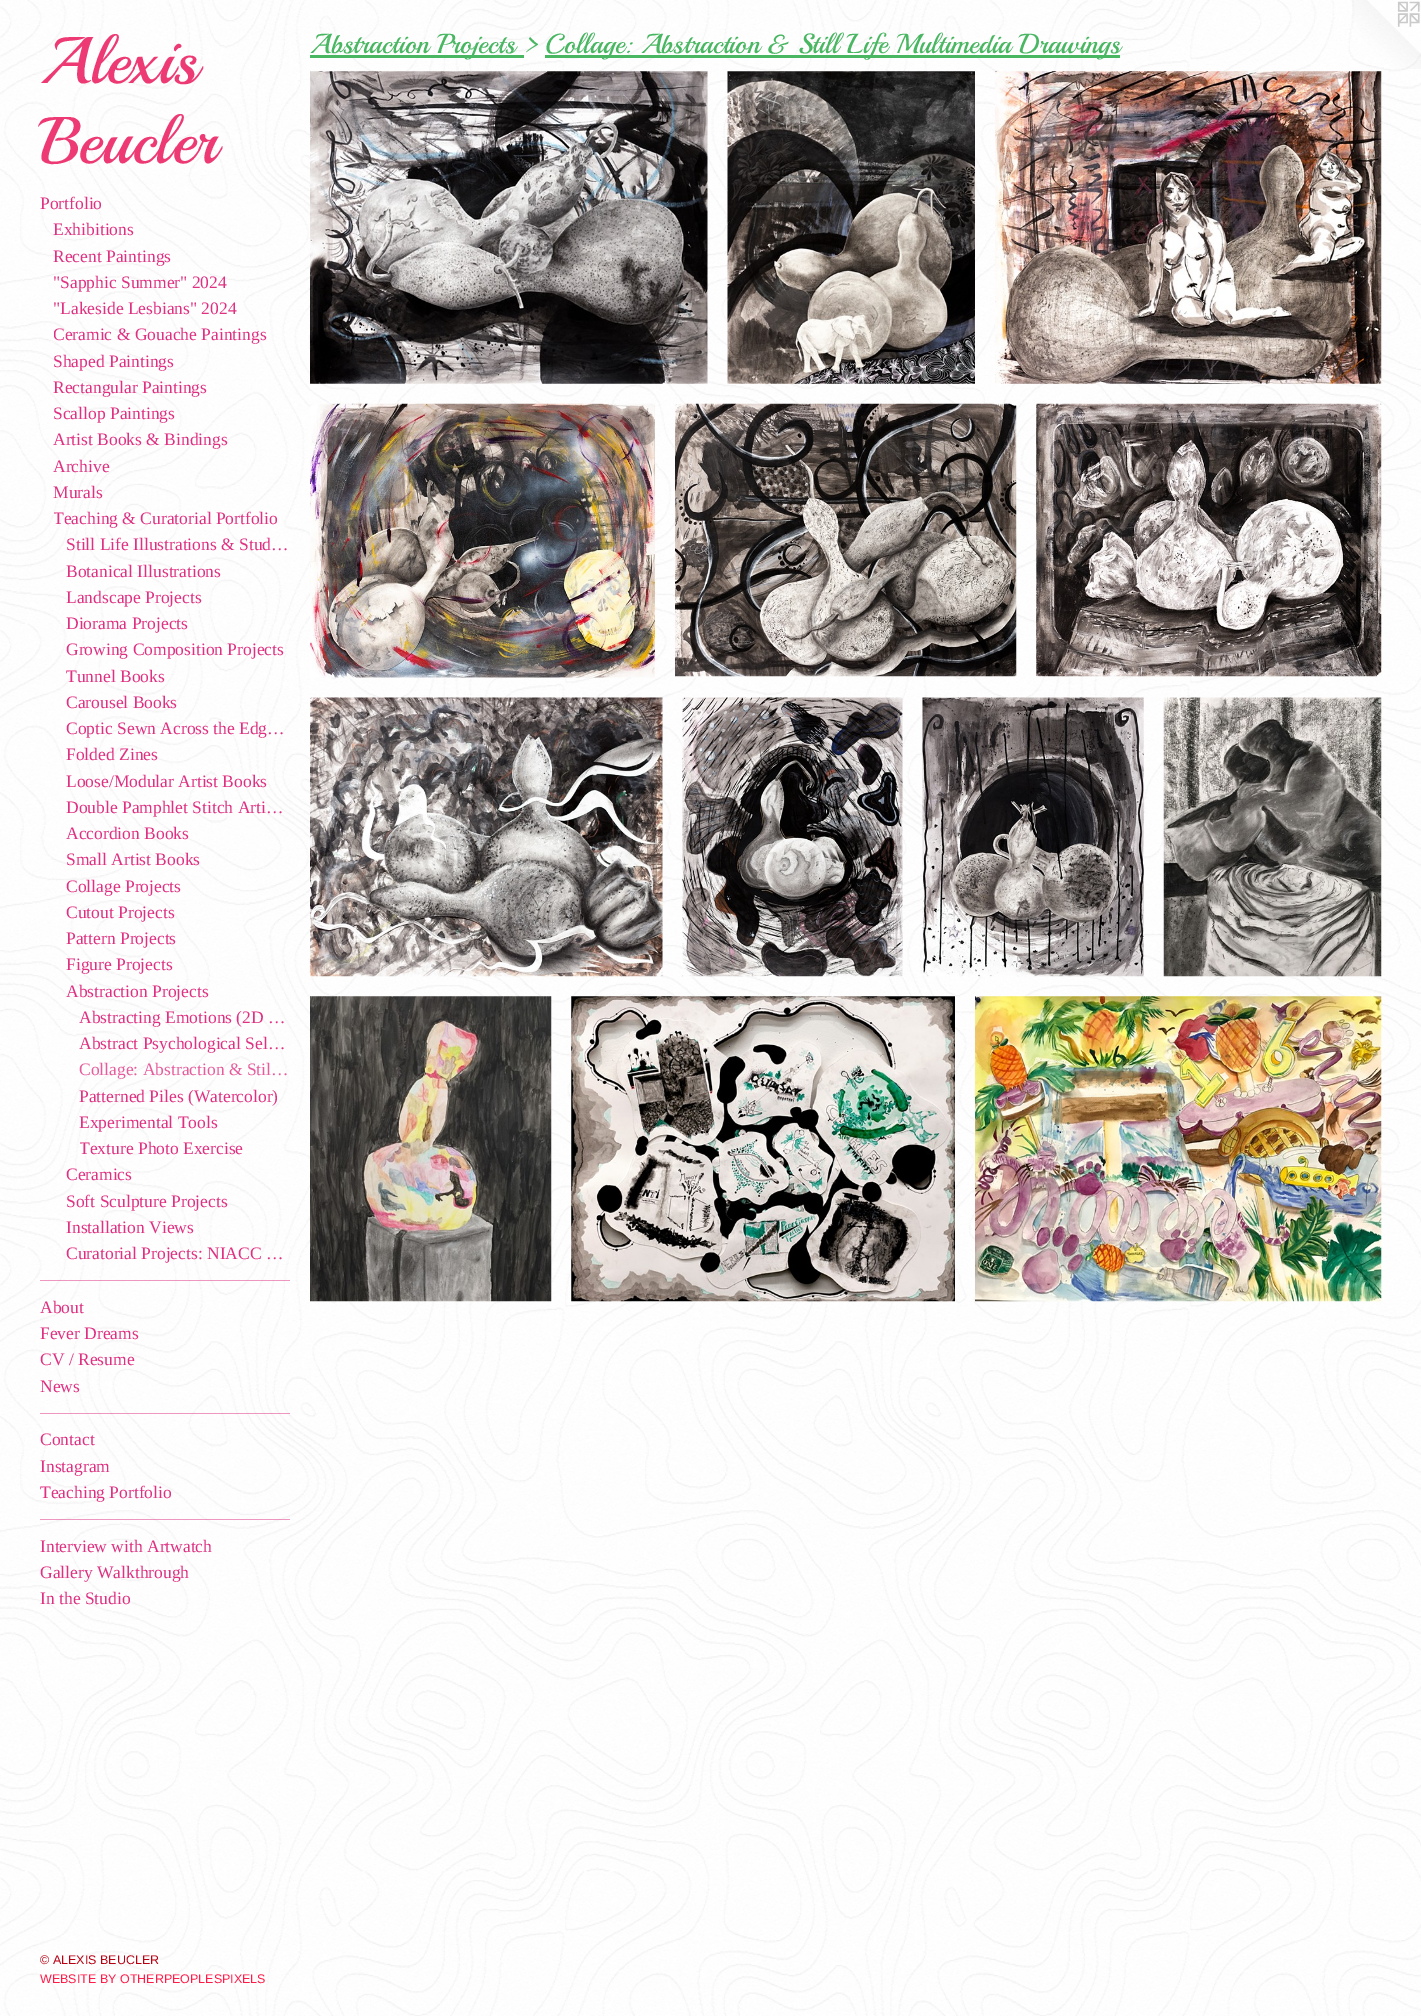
%!PS-Adobe-3.0
%%BoundingBox: 0 0 1421 2016
%%LanguageLevel: 3
%%Pages: 1
%%EndComments
%%BeginProlog
/q { gsave } bind def
/Q { grestore } bind def
/fn { [ exch dup neg 0 0 3 -1 roll 0 0 ] selectfont } def
/tx { moveto show } def
/bx { rectfill } def
/al { dup .setfillconstantalpha .setstrokeconstantalpha } def
/im { 5 dict begin { /h /w /y /x /name } { exch def } forall
  gsave x y translate w h scale
  w h 8 [w 0 0 h 0 0] name (r) file false 3 colorimage grestore end } def
%%EndProlog
%%BeginSetup
<< /PageSize [1421 2016] /PageUsesTransparency true >> setpagedevice
%%EndSetup
%%Page: 1 1
0 .pushpdf14devicefilter
0 2016 translate 1 -1 scale
4 setmiterlimit
1 setgray
0 0 1421 2016 bx
(image0.raw) 0 0 1421 2016 im
/Playball-Regular 66 fn
0.933 0.227 0.455 setrgbcolor
(Alexis) 40 83 tx
(Beucler) 40 163 tx
/LiberationSerif-Regular 17.5 fn
0.875 0.188 0.51 setrgbcolor
(Portfolio) 40 209 tx
(Exhibitions) 53 235 tx
(Recent Paintings) 53 262 tx
("Sapphic Summer" 2024) 53 288 tx
("Lakeside Lesbians" 2024) 53 314 tx
q
54 321 236 27 rectclip
(Ceramic & Gouache Paintings) 53 340 tx
Q
(Shaped Paintings) 53 367 tx
(Rectangular Paintings) 53 393 tx
(Scallop Paintings) 53 419 tx
(Artist Books & Bindings) 53 445 tx
(Archive) 53 472 tx
(Murals) 53 498 tx
q
54 505 236 26 rectclip
(Teaching & Curatorial Portfolio) 53 524 tx
Q
(Still Life Illustrations & Stud…) 66 550 tx
(Botanical Illustrations) 66 577 tx
(Landscape Projects) 66 603 tx
(Diorama Projects) 66 629 tx
(Growing Composition Projects) 66 655 tx
(Tunnel Books) 66 682 tx
(Carousel Books) 66 708 tx
(Coptic Sewn Across the Edg…) 66 734 tx
(Folded Zines) 66 760 tx
(Loose/Modular Artist Books) 66 787 tx
(Double Pamphlet Stitch Arti…) 66 813 tx
(Accordion Books) 66 839 tx
(Small Artist Books) 66 865 tx
(Collage Projects) 66 892 tx
(Cutout Projects) 66 918 tx
(Pattern Projects) 66 944 tx
(Figure Projects) 66 970 tx
(Abstraction Projects) 66 997 tx
(Abstracting Emotions \(2D …) 79 1023 tx
(Abstract Psychological Sel…) 79 1049 tx
0.902 0.361 0.616 setrgbcolor
(Collage: Abstraction & Stil…) 79 1075 tx
0.875 0.188 0.51 setrgbcolor
(Patterned Piles \(Watercolor\)) 79 1102 tx
(Experimental Tools) 79 1128 tx
q
80 1135 210 26 rectclip
(Texture Photo Exercise) 79 1154 tx
Q
(Ceramics) 66 1180 tx
(Soft Sculpture Projects) 66 1207 tx
(Installation Views) 66 1233 tx
(Curatorial Projects: NIACC …) 66 1259 tx
0.5 al
40 1280 250 1 bx
1 al
(About) 40 1313 tx
(Fever Dreams) 40 1339 tx
(CV / Resume) 40 1365 tx
(News) 40 1392 tx
0.5 al
40 1413 250 1 bx
1 al
(Contact) 40 1445 tx
(Instagram) 40 1472 tx
(Teaching Portfolio) 40 1498 tx
0.5 al
40 1519 250 1 bx
1 al
(Interview with Artwatch) 40 1552 tx
(Gallery Walkthrough) 40 1578 tx
(In the Studio) 40 1604 tx
/LiberationSans-Regular 12.5 fn
0.722 0 0.075 setrgbcolor
(© ALEXIS BEUCLER) 40 1964 tx
1 0.102 0.278 setrgbcolor
(WEBSITE BY OTHERPEOPLESPIXELS) 40 1983 tx
0.286 0.714 0.384 setrgbcolor
310 55 214 3 bx
/Playball-Regular 27.5 fn
(Abstraction Projects >) 310 53 tx
545 55 575 3 bx
(Collage: Abstraction & Still Life Multimedia Drawings) 545 53 tx
(image1.raw) 310 71 398 313 im
(image2.raw) 727 71 248 313 im
(image3.raw) 995 71 387 313 im
(image4.raw) 310 403 345 275 im
(image5.raw) 675 403 342 274 im
(image6.raw) 1036 403 346 274 im
(image7.raw) 310 697 353 280 im
(image8.raw) 682 697 221 280 im
(image9.raw) 922 697 222 280 im
(image10.raw) 1163 697 219 280 im
(image11.raw) 310 996 242 306 im
(image12.raw) 571 996 384 306 im
(image13.raw) 975 996 407 306 im
(image14.raw) 1352 0 69 69 im
.poppdf14devicefilter showpage
%%EOF
